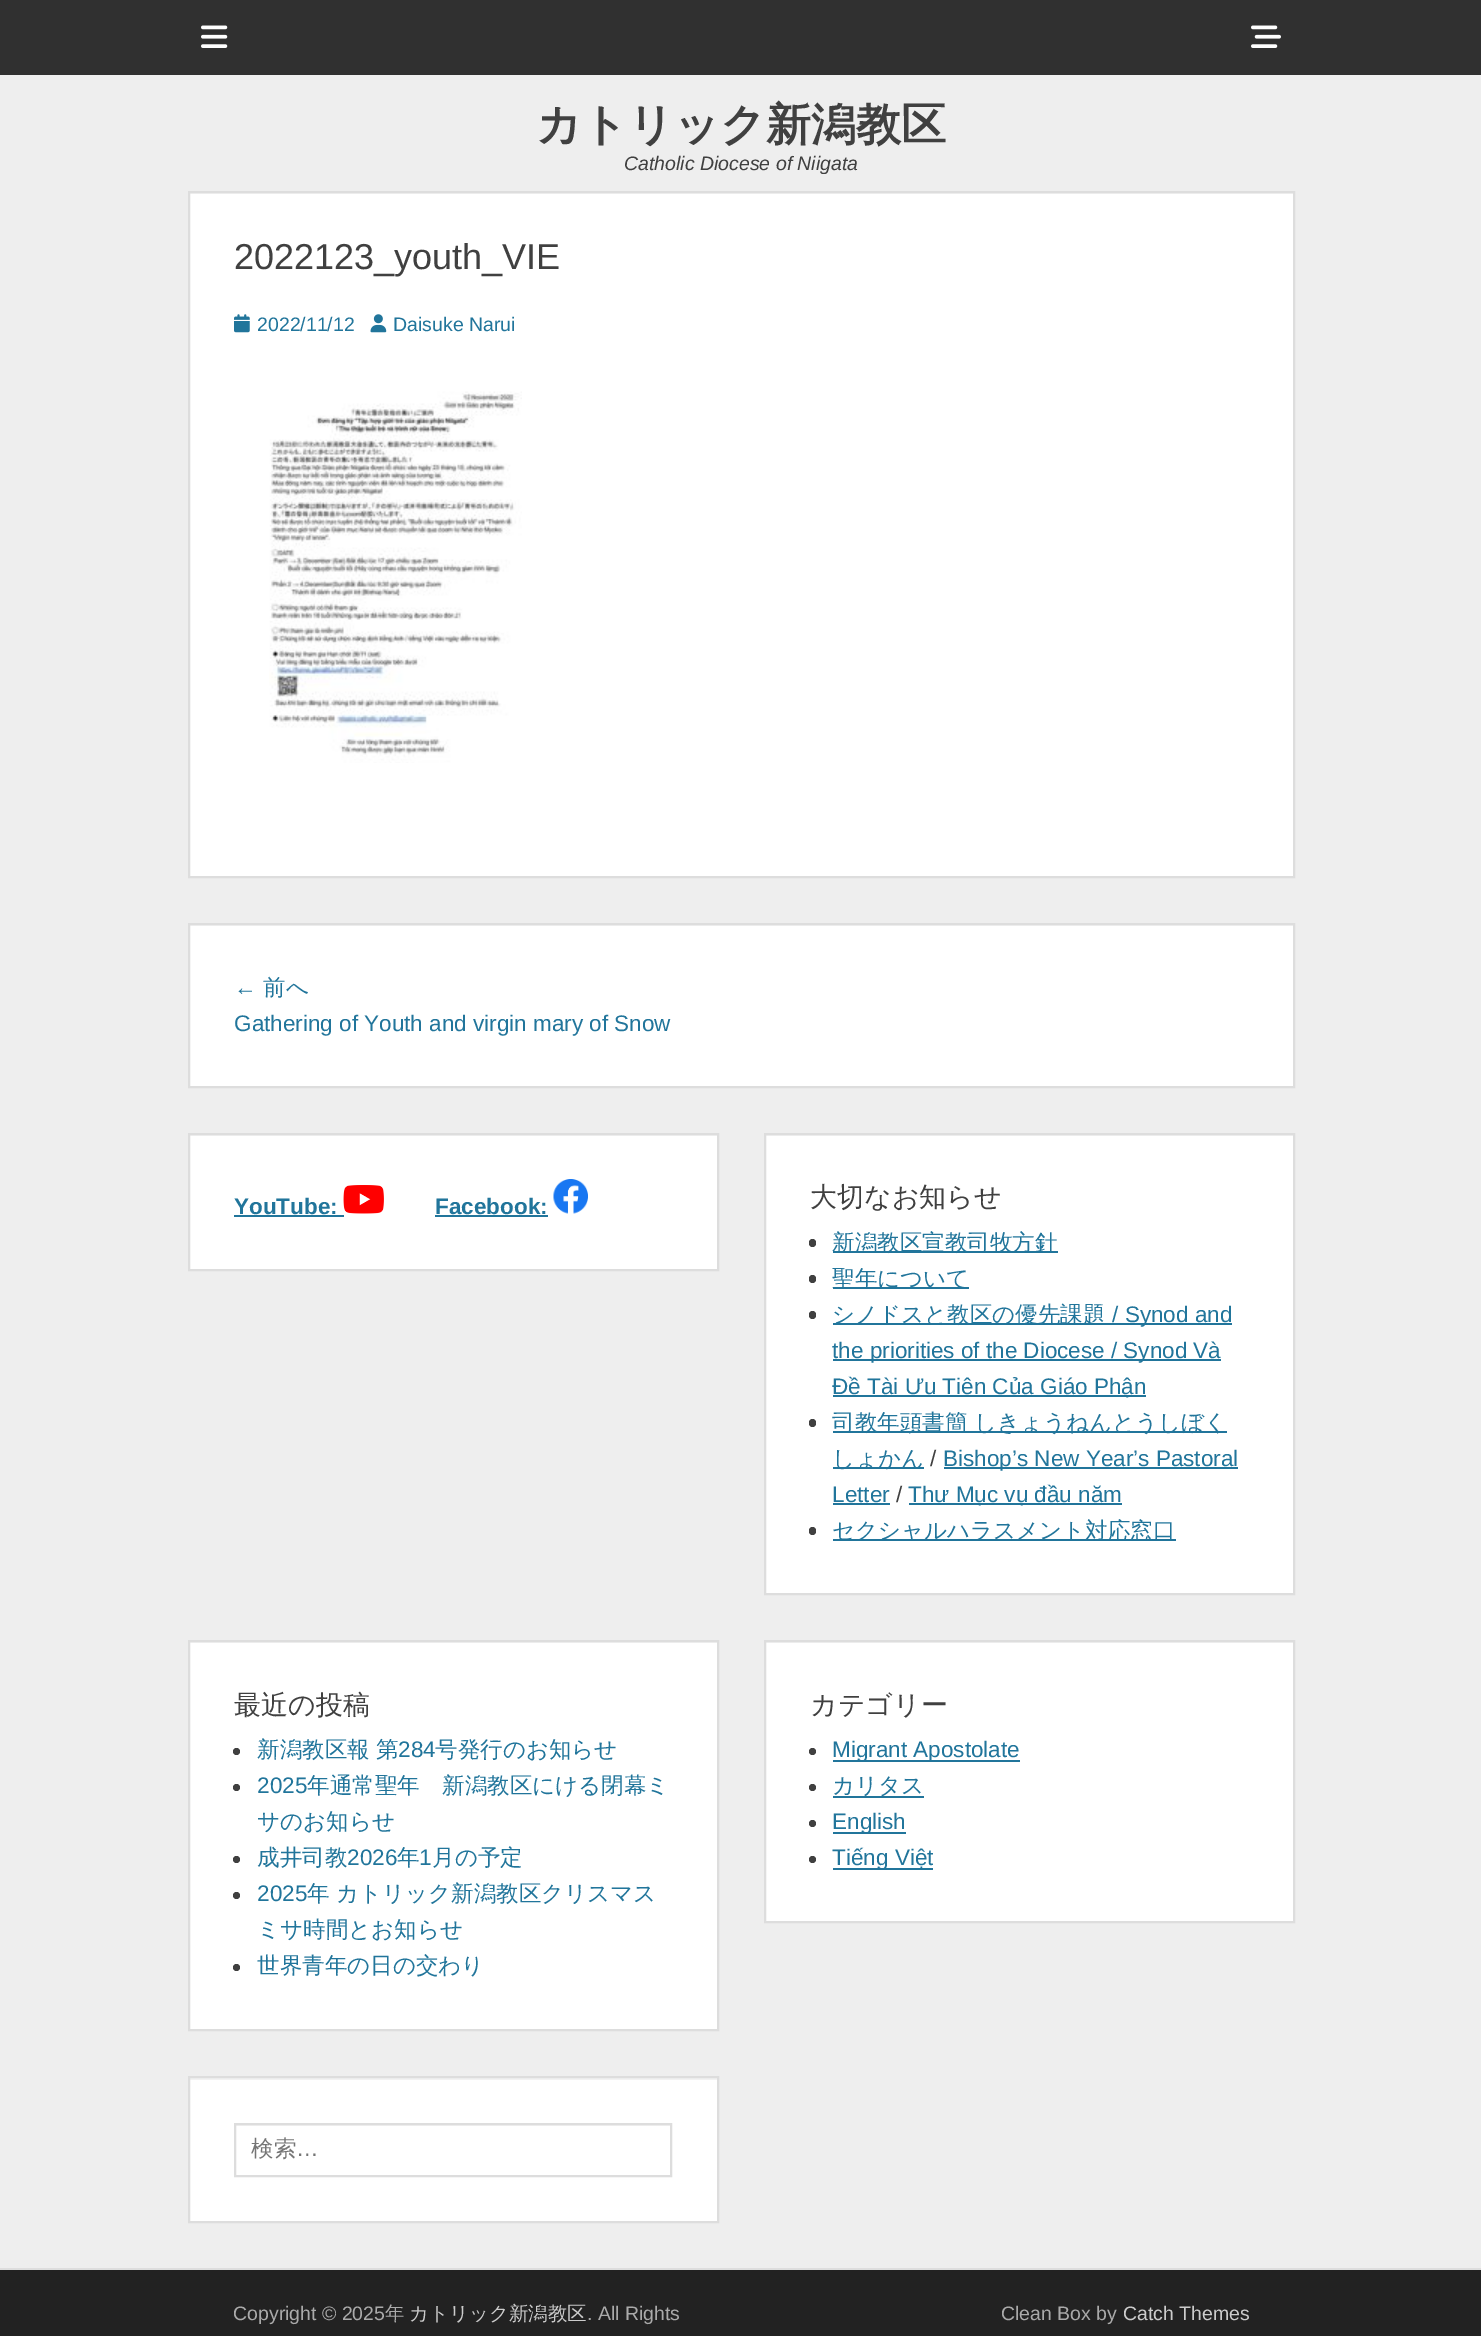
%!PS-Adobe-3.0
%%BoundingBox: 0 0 1481 2336
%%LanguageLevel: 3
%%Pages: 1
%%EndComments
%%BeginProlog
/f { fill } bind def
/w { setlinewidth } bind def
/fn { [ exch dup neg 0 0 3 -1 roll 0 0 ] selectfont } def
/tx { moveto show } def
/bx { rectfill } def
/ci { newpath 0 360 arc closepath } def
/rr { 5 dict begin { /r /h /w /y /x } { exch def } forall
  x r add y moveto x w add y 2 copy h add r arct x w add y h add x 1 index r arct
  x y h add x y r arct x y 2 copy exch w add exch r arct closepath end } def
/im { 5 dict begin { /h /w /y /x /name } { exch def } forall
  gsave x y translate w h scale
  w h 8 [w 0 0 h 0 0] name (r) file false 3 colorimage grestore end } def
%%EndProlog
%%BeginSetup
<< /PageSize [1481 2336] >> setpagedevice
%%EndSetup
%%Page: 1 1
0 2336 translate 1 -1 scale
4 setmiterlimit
0.933 setgray
0 0 1481 2336 bx
0.188 setgray
0 0 1481 75 bx
(image0.raw) 201 25 27 23 im
(image1.raw) 1251 25 30 23 im
/WenQuanYiZenHei-Bold 45 fn
0.251 setgray
(カトリック新潟教区) 536 140 tx
/LiberationSans-Italic 19.5 fn
(Catholic Diocese of Niigata) 624 170 tx
1 setgray
190 194 1103 682 bx
0.949 setgray
189 193 1104 1 bx
0.867 setgray
2 w
189 192 1105 685 rectstroke
/LiberationSans-Regular 36 fn
0.251 setgray
(2022123_youth_VIE) 234 269 tx
(image2.raw) 234 314 16 19 im
/LiberationSans-Regular 19.5 fn
0.129 0.459 0.608 setrgbcolor
(2022/11/12) 257 331 tx
(image3.raw) 370 314 17 19 im
(Daisuke Narui) 393 331 tx
(image4.raw) 269 391 253 372 im
1 setgray
190 926 1103 160 bx
0.949 setgray
189 925 1104 1 bx
0.867 setgray
189 924 1105 163 rectstroke
/LiberationSans-Regular 22.5 fn
0.129 0.459 0.608 setrgbcolor
(←) 234 995 tx
/WenQuanYiZenHei-Medium 22.5 fn
(前へ) 263 995 tx
/LiberationSans-Regular 22.5 fn
(Gathering of Youth and virgin mary of Snow) 234 1031 tx
1 setgray
190 1136 527 133 bx
0.949 setgray
189 1135 528 1 bx
0.867 setgray
189 1134 529 136 rectstroke
/LiberationSans-Bold 22.5 fn
0.129 0.459 0.608 setrgbcolor
(YouTube:) 234 1214 tx
234 1215 110 2 bx
(image5.raw) 343 1185 41 29 im
(Facebook:) 435 1214 tx
435 1215 113 2 bx
(image6.raw) 553 1179 35 35 im
1 setgray
766 1136 527 457 bx
0.949 setgray
765 1135 528 1 bx
0.867 setgray
765 1134 529 460 rectstroke
/WenQuanYiZenHei-Medium 27 fn
0.251 setgray
(大切なお知らせ) 810 1206 tx
809 1239 7 8 3.5 rr f
0.129 0.459 0.608 setrgbcolor
833 1251 225 2 bx
/WenQuanYiZenHei-Medium 22.5 fn
(新潟教区宣教司牧方針) 832 1250 tx
0.251 setgray
809 1275 7 8 3.5 rr f
0.129 0.459 0.608 setrgbcolor
833 1287 136 2 bx
(聖年について) 832 1286 tx
0.251 setgray
809 1311 7 8 3.5 rr f
0.129 0.459 0.608 setrgbcolor
833 1323 399 2 bx
(シノドスと教区の優先課題) 832 1322 tx
/LiberationSans-Regular 22.5 fn
(/ Synod and) 1112 1322 tx
833 1359 388 2 bx
(the priorities of the Diocese / Synod Và) 832 1358 tx
833 1395 313 2 bx
(Đề Tài Ưu Tiên Của Giáo Phận) 832 1394 tx
0.251 setgray
809 1419 7 8 3.5 rr f
0.129 0.459 0.608 setrgbcolor
833 1431 394 2 bx
/WenQuanYiZenHei-Medium 22.5 fn
(司教年頭書簡 しきょうねんとうしぼく) 832 1430 tx
833 1467 91 2 bx
(しょかん) 832 1466 tx
/LiberationSans-Regular 22.5 fn
0.251 setgray
(/) 930 1466 tx
0.129 0.459 0.608 setrgbcolor
944 1467 294 2 bx
(Bishop’s New Year’s Pastoral) 943 1466 tx
(Letter) 832 1502 tx
833 1503 57 2 bx
0.251 setgray
(/) 896 1502 tx
0.129 0.459 0.608 setrgbcolor
909 1503 213 2 bx
(Thư Mục vụ đầu năm) 908 1502 tx
0.251 setgray
809 1527 7 8 3.5 rr f
0.129 0.459 0.608 setrgbcolor
833 1539 343 2 bx
/WenQuanYiZenHei-Medium 22.5 fn
(セクシャルハラスメント対応窓口) 832 1538 tx
1 setgray
190 1643 527 386 bx
0.949 setgray
189 1642 528 1 bx
0.867 setgray
189 1641 529 389 rectstroke
/WenQuanYiZenHei-Medium 27 fn
0.251 setgray
(最近の投稿) 234 1714 tx
236.5 1751.5 3.5 ci f
/WenQuanYiZenHei-Medium 22.5 fn
0.129 0.459 0.608 setrgbcolor
(新潟教区報 第) 257 1757 tx
/LiberationSans-Regular 22.5 fn
(284) 398 1757 tx
/WenQuanYiZenHei-Medium 22.5 fn
(号発行のお知らせ) 435 1757 tx
0.251 setgray
236.5 1787.5 3.5 ci f
/LiberationSans-Regular 22.5 fn
0.129 0.459 0.608 setrgbcolor
(2025) 257 1793 tx
/WenQuanYiZenHei-Medium 22.5 fn
(年通常聖年　新潟教区にける閉幕ミ) 307 1793 tx
(サのお知らせ) 257 1829 tx
0.251 setgray
236.5 1859.5 3.5 ci f
0.129 0.459 0.608 setrgbcolor
(成井司教) 257 1865 tx
/LiberationSans-Regular 22.5 fn
(2026) 347 1865 tx
/WenQuanYiZenHei-Medium 22.5 fn
(年) 397 1865 tx
/LiberationSans-Regular 22.5 fn
(1) 419 1865 tx
/WenQuanYiZenHei-Medium 22.5 fn
(月の予定) 432 1865 tx
0.251 setgray
236.5 1895.5 3.5 ci f
/LiberationSans-Regular 22.5 fn
0.129 0.459 0.608 setrgbcolor
(2025) 257 1901 tx
/WenQuanYiZenHei-Medium 22.5 fn
(年 カトリック新潟教区クリスマス) 307 1901 tx
(ミサ時間とお知らせ) 257 1937 tx
0.251 setgray
236.5 1967.5 3.5 ci f
0.129 0.459 0.608 setrgbcolor
(世界青年の日の交わり) 257 1973 tx
1 setgray
766 1643 527 278 bx
0.949 setgray
765 1642 528 1 bx
0.867 setgray
765 1641 529 281 rectstroke
/WenQuanYiZenHei-Medium 27 fn
0.251 setgray
(カテゴリー) 810 1714 tx
812.5 1751.5 3.5 ci f
0.129 0.459 0.608 setrgbcolor
833 1760 187 2 bx
/LiberationSans-Regular 22.5 fn
(Migrant Apostolate) 832 1757 tx
0.251 setgray
812.5 1787.5 3.5 ci f
0.129 0.459 0.608 setrgbcolor
833 1796 91 2 bx
/WenQuanYiZenHei-Medium 22.5 fn
(カリタス) 832 1793 tx
0.251 setgray
812.5 1823.5 3.5 ci f
0.129 0.459 0.608 setrgbcolor
833 1832 73 2 bx
/LiberationSans-Regular 22.5 fn
(English) 832 1829 tx
0.251 setgray
812.5 1859.5 3.5 ci f
0.129 0.459 0.608 setrgbcolor
833 1868 100 2 bx
(Tiếng Việt) 832 1865 tx
1 setgray
190 2080 527 141 bx
0.949 setgray
189 2078 528 2 bx
0.867 setgray
189 2077 529 145 rectstroke
0.949 setgray
236 2125 435 1 bx
0.867 setgray
235 2124 436 52 rectstroke
/WenQuanYiZenHei-Medium 22.5 fn
0.459 setgray
(検索) 251 2156 tx
/LiberationSans-Regular 22.5 fn
(…) 296 2156 tx
0.867 setgray
0 2268 1481 2 bx
0.133 setgray
0 2270 1481 66 bx
/LiberationSans-Regular 19.5 fn
0.667 setgray
(Copyright © 2025) 233 2320 tx
/WenQuanYiZenHei-Medium 19.5 fn
(年) 385 2320 tx
0.8 setgray
(カトリック新潟教区) 409 2320 tx
/LiberationSans-Regular 19.5 fn
0.667 setgray
(. All Rights) 587 2320 tx
(Clean Box by) 1001 2320 tx
0.8 setgray
(Catch Themes) 1123 2320 tx
showpage
%%EOF
